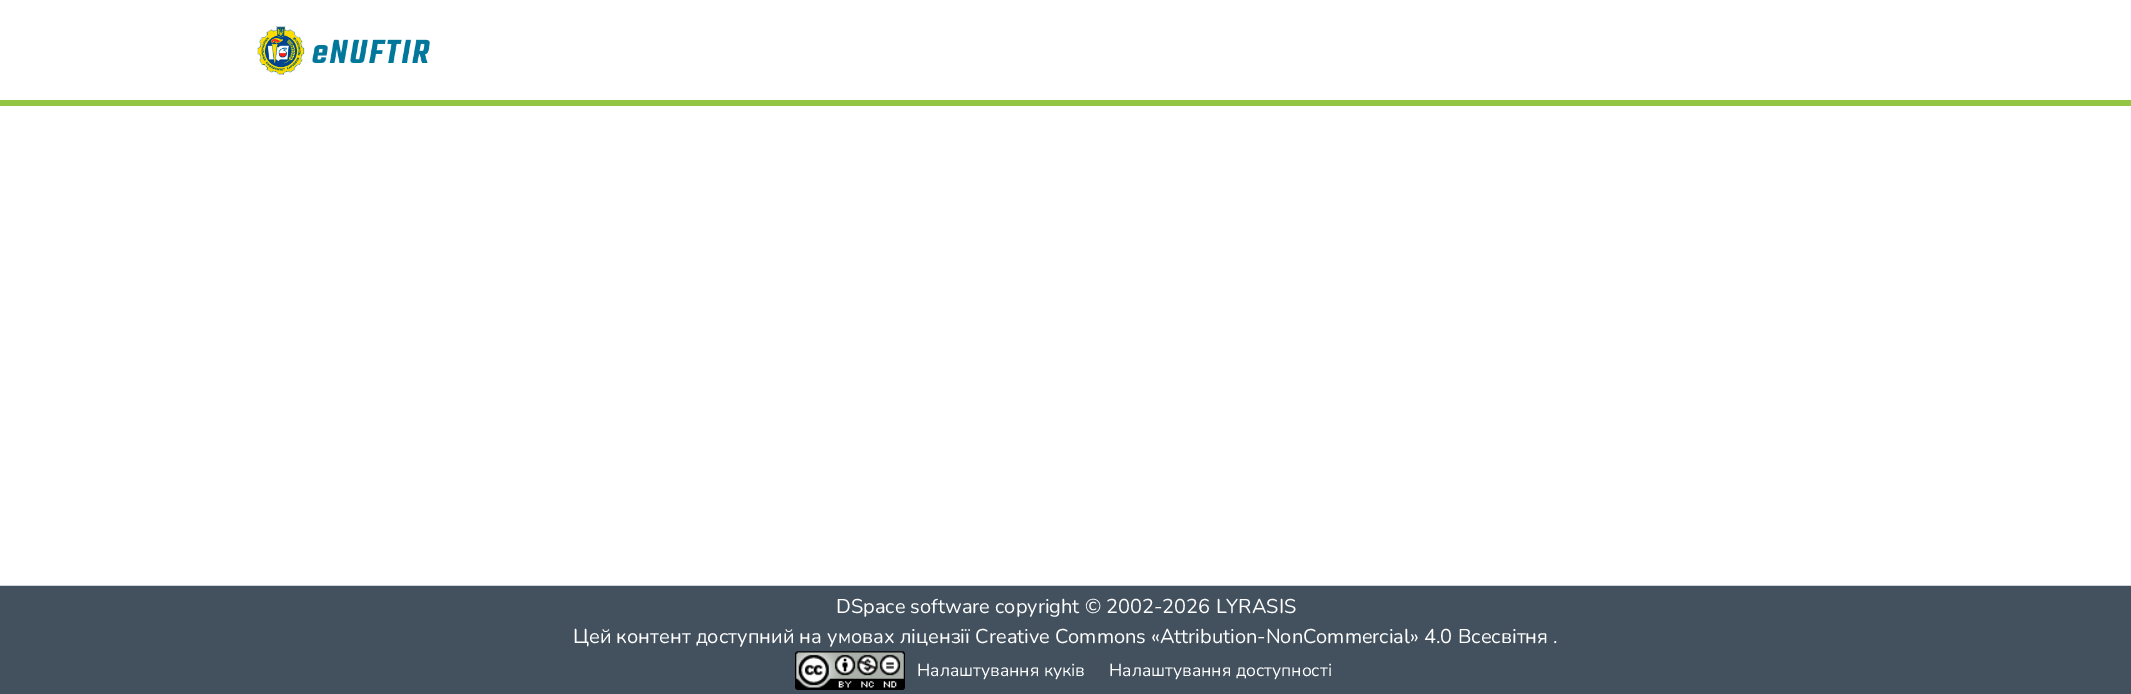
%!PS-Adobe-3.0
%%BoundingBox: 0 0 2131 694
%%LanguageLevel: 3
%%Pages: 1
%%EndComments
%%BeginProlog
/fn { [ exch dup neg 0 0 3 -1 roll 0 0 ] selectfont } def
/tx { moveto show } def
/bx { rectfill } def
/im { 5 dict begin { /h /w /y /x /name } { exch def } forall
  gsave x y translate w h scale
  w h 8 [w 0 0 h 0 0] name (r) file false 3 colorimage grestore end } def
%%EndProlog
%%BeginSetup
<< /PageSize [2131 694] >> setpagedevice
%%EndSetup
%%Page: 1 1
0 694 translate 1 -1 scale
4 setmiterlimit
1 setgray
0 0 2131 694 bx
0.573 0.776 0.259 setrgbcolor
0 100 2131 6 bx
(image0.raw) 257 26 173 49 im
0.263 0.318 0.373 setrgbcolor
0 586 2131 108 bx
0.808 0.831 0.855 setrgbcolor
0 585 2131 1 bx
/Nunito-Regular 20 fn
1 setgray
(DSpace software copyright © 2002-2026 LYRASIS) 836 613 tx
(Цей контент доступний на умовах ліцензії Creative Commons «Attribution-NonCommercial» 4.0 Всесвітня .) 573 643 tx
(image1.raw) 795 651 110 39 im
/Nunito-Regular 17.5 fn
(Налаштування куків) 917 676 tx
0.286 0.314 0.341 setrgbcolor
1096 656 1 29 bx
1 setgray
(Налаштування доступності) 1109 676 tx
showpage
%%EOF
